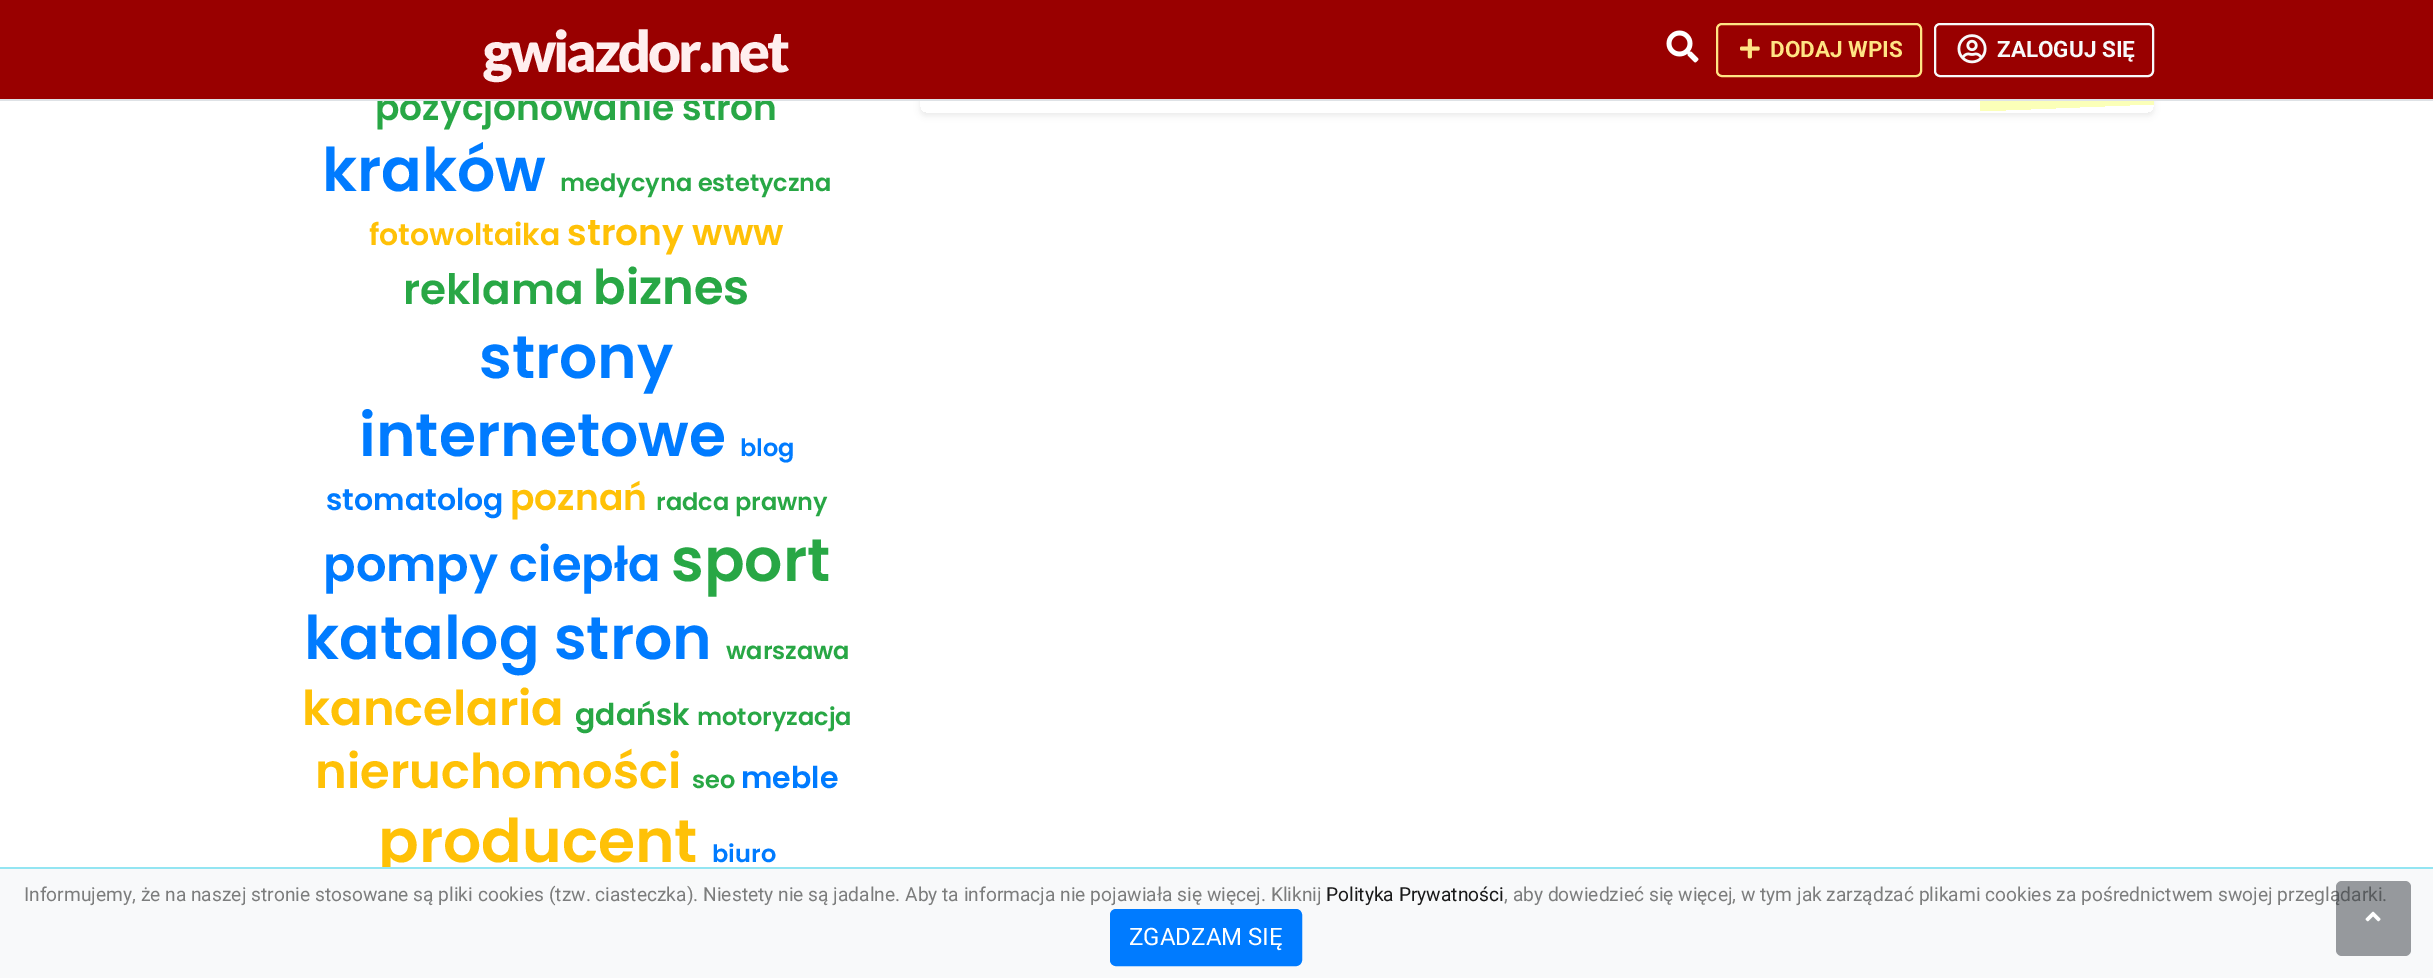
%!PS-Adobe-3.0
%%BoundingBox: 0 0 2433 978
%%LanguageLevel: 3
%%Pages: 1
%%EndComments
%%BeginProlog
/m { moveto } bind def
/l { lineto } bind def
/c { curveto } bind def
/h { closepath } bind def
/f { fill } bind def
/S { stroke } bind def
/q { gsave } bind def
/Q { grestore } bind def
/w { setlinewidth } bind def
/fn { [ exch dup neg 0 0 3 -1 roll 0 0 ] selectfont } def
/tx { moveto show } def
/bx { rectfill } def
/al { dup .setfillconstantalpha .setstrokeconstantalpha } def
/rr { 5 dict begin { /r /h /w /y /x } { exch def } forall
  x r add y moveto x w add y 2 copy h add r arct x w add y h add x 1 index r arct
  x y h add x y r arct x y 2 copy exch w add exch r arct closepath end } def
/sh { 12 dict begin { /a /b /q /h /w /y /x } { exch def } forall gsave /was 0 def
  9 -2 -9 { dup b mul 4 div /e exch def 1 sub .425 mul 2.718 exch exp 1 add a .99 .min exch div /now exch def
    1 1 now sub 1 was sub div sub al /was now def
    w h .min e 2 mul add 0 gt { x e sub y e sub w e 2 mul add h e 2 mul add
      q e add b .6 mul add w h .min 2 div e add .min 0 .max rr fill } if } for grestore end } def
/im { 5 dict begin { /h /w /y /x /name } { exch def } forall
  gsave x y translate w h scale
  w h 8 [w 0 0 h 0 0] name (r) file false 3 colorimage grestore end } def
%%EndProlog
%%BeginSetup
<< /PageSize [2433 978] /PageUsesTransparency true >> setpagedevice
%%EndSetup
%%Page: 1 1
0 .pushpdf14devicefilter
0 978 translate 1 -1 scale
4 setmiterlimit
1 setgray
0 0 2433 978 bx
q
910 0 m 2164 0 l 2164 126 l 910 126 l h 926 -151 m 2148 -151 l 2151.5 -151 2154 -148.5 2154 -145 c 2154 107 l 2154 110.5 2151.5 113 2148 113 c 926 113 l 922.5 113 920 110.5 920 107 c 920 -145 l 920 -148.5 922.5 -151 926 -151 c h eoclip newpath
0 setgray
920 -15 1234 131 6 3 0.07 sh
Q
q 1980 81 m 2153 75 l 2154 104 l 1981 111 l h clip newpath
<< /ShadingType 2 /ColorSpace /DeviceRGB /Coords [2068 107 2067 78] /Extend [true true] /Function << /FunctionType 3 /Domain [0 1] /Functions [<< /FunctionType 2 /Domain [0 1] /C0 [0.984 1 0.722] /C1 [0.984 1 0.722] /N 1 >> << /FunctionType 2 /Domain [0 1] /C0 [0.984 1 0.722] /C1 [1 1 1] /N 1 >> << /FunctionType 2 /Domain [0 1] /C0 [1 1 1] /C1 [1 1 1] /N 1 >>] /Bounds [0.3 0.45] /Encode [0 1 0 1 0 1] >> >> shfill Q
/Poppins-SemiBold 36 fn
0.157 0.655 0.271 setrgbcolor
(pozycjonowanie stron) 375 120 tx
0.6 0 0 setrgbcolor
0 0 2433 99 bx
0.871 0.886 0.902 setrgbcolor
0 99 2433 2 bx
/Lato-Black 57 fn
1 0.933 0.933 setrgbcolor
483 72 m -3 0 (gwiazdor.net) ashow
(image0.raw) 1666 30 33 33 im
1 0.894 0.518 setrgbcolor
2 w
1717 24 204 52 5 rr S
(image1.raw) 1740 38 20 21 im
/Roboto-Bold 22.5 fn
(DODAJ WPIS) 1770 57 tx
0.973 0.976 0.98 setrgbcolor
1935 24 218 52 5 rr S
(image2.raw) 1957 34 30 30 im
(ZALOGUJ SIĘ) 1997 57 tx
/Poppins-SemiBold 60 fn
0 0.482 1 setrgbcolor
(kraków) 322 191 tx
/Poppins-SemiBold 24 fn
0.157 0.655 0.271 setrgbcolor
(medycyna estetyczna) 560 191 tx
/Poppins-SemiBold 30 fn
1 0.757 0.027 setrgbcolor
(fotowoltaika) 369 245 tx
/Poppins-SemiBold 36 fn
(strony www) 567 245 tx
/Poppins-SemiBold 42 fn
0.157 0.655 0.271 setrgbcolor
(reklama) 403 304 tx
/Poppins-SemiBold 48 fn
(biznes) 593 304 tx
/Poppins-SemiBold 60 fn
0 0.482 1 setrgbcolor
(strony) 479 378 tx
(internetowe) 359 456 tx
/Poppins-SemiBold 24 fn
(blog) 740 456 tx
/Poppins-SemiBold 30 fn
(stomatolog) 326 510 tx
/Poppins-SemiBold 36 fn
1 0.757 0.027 setrgbcolor
(poznań) 510 510 tx
/Poppins-SemiBold 24 fn
0.157 0.655 0.271 setrgbcolor
(radca prawny) 656 510 tx
/Poppins-SemiBold 48 fn
0 0.482 1 setrgbcolor
(pompy ciepła) 323 581 tx
/Poppins-SemiBold 60 fn
0.157 0.655 0.271 setrgbcolor
(sport) 671 581 tx
0 0.482 1 setrgbcolor
(katalog stron) 304 659 tx
/Poppins-SemiBold 24 fn
0.157 0.655 0.271 setrgbcolor
(warszawa) 726 659 tx
/Poppins-SemiBold 48 fn
1 0.757 0.027 setrgbcolor
(kancelaria) 302 725 tx
/Poppins-SemiBold 30 fn
0.157 0.655 0.271 setrgbcolor
(gdańsk) 575 725 tx
/Poppins-SemiBold 24 fn
(motoryzacja) 697 725 tx
/Poppins-SemiBold 48 fn
1 0.757 0.027 setrgbcolor
(nieruchomości) 315 788 tx
/Poppins-SemiBold 24 fn
0.157 0.655 0.271 setrgbcolor
(seo) 692 788 tx
/Poppins-SemiBold 30 fn
0 0.482 1 setrgbcolor
(meble) 741 788 tx
/Poppins-SemiBold 60 fn
1 0.757 0.027 setrgbcolor
(producent) 378 862 tx
/Poppins-SemiBold 24 fn
0 0.482 1 setrgbcolor
(biuro) 712 862 tx
0.973 0.976 0.98 setrgbcolor
0 869 2433 109 bx
/Roboto-Regular 19.2 fn
0.486 0.49 0.49 setrgbcolor
(, aby dowiedzieć się więcej, w tym jak zarządzać plikami cookies za pośrednictwem swojej przeglądarki.) 1504 901 tx
0.5 al
0.204 0.227 0.251 setrgbcolor
2336 881 75 75 6 rr f
1 al
(image3.raw) 2365 911 16 11 im
0.576 0.898 0.949 setrgbcolor
0 867 2433 2 bx
0.486 0.49 0.49 setrgbcolor
(Informujemy, że na naszej stronie stosowane są pliki cookies \(tzw. ciasteczka\). Niestety nie są jadalne. Aby ta informacja nie pojawiała się więcej. Kliknij) 24 901 tx
0.098 setgray
(Polityka Prywatności) 1326 901 tx
0 0.482 1 setrgbcolor
1111 910 190 55 5 rr q f Q
S
/Roboto-Regular 24 fn
1 setgray
(ZGADZAM SIĘ) 1129 945 tx
.poppdf14devicefilter showpage
%%EOF
